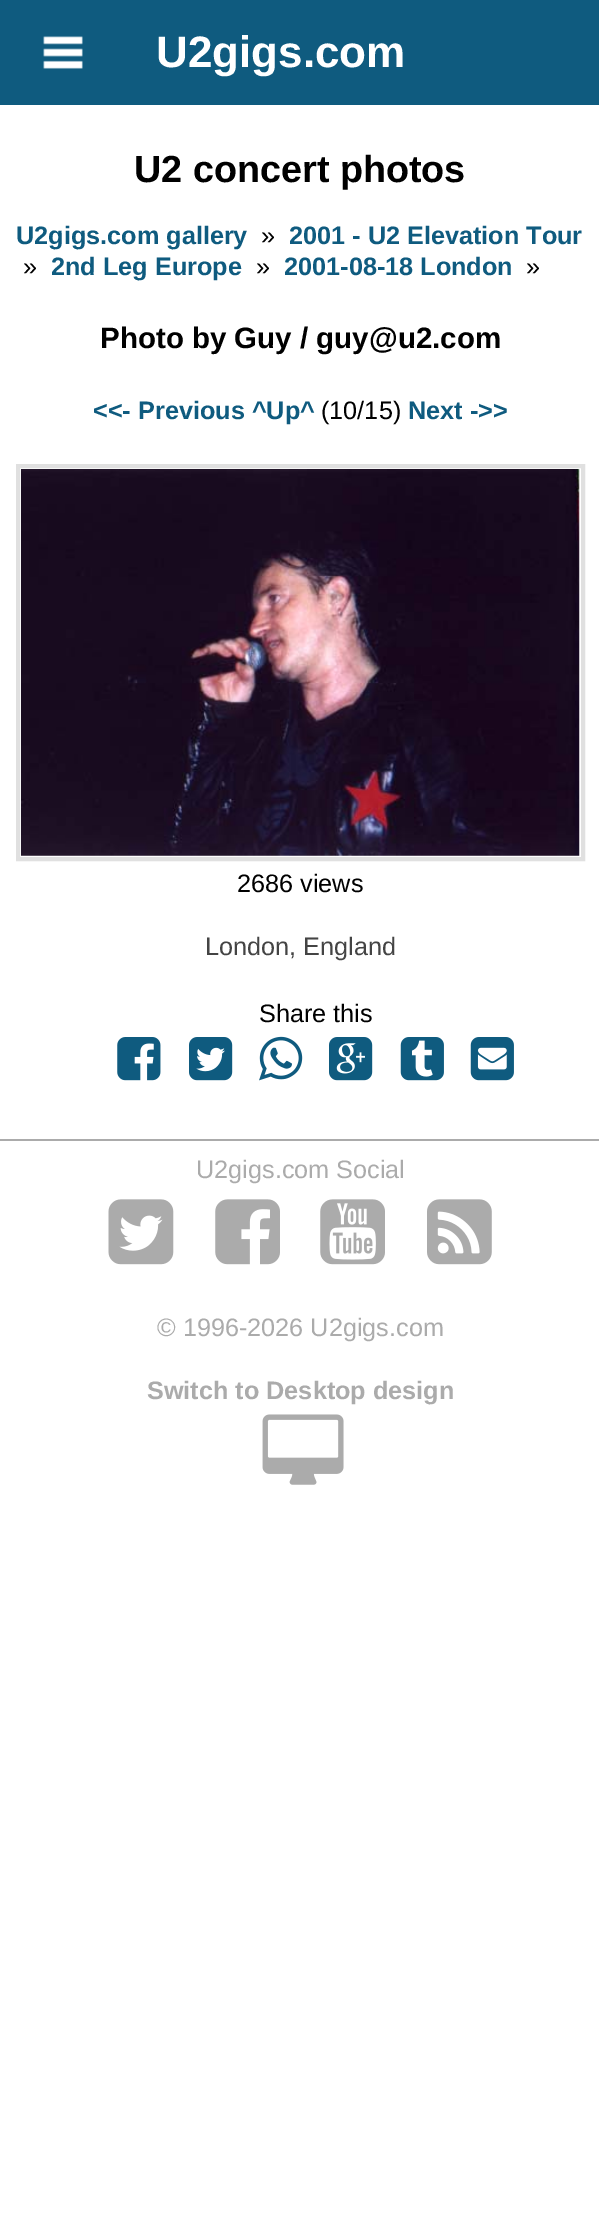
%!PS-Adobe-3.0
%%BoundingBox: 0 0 599 2228
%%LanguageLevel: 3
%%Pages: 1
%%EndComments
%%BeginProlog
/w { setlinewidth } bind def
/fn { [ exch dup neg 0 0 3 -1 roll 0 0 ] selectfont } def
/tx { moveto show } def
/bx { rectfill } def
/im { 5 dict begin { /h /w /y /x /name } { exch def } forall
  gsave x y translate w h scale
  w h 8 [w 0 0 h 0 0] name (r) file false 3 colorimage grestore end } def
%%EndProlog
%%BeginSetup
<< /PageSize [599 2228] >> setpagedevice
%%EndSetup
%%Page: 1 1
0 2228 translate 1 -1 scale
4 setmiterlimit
1 setgray
0 0 599 2228 bx
0.059 0.357 0.498 setrgbcolor
0 0 599 105 bx
(image0.raw) 43 36 40 33 im
/LiberationSans-Bold 44 fn
1 setgray
(U2gigs.com) 156 67 tx
/LiberationSans-Bold 37.75 fn
0 setgray
(U2 concert photos) 134 182 tx
/LiberationSans-Bold 25.25 fn
0.059 0.357 0.498 setrgbcolor
(U2gigs.com gallery) 16 244 tx
/LiberationSans-Regular 25.25 fn
0 setgray
(») 261 244 tx
/LiberationSans-Bold 25.25 fn
0.059 0.357 0.498 setrgbcolor
(2001 - U2 Elevation Tour) 289 244 tx
/LiberationSans-Regular 25.25 fn
0 setgray
(») 23 275 tx
/LiberationSans-Bold 25.25 fn
0.059 0.357 0.498 setrgbcolor
(2nd Leg Europe) 51 275 tx
/LiberationSans-Regular 25.25 fn
0 setgray
(») 256 275 tx
/LiberationSans-Bold 25.25 fn
0.059 0.357 0.498 setrgbcolor
(2001-08-18 London) 284 275 tx
/LiberationSans-Regular 25.25 fn
0 setgray
(») 526 275 tx
/LiberationSans-Bold 29.5 fn
(Photo by Guy / guy@u2.com) 100 348 tx
/LiberationSans-Bold 25.25 fn
0.059 0.357 0.498 setrgbcolor
(<<- Previous ^Up^) 93 419 tx
/LiberationSans-Regular 25.25 fn
0 setgray
(\(10/15\)) 321 419 tx
/LiberationSans-Bold 25.25 fn
0.059 0.357 0.498 setrgbcolor
(Next ->>) 408 419 tx
0.878 setgray
4 w
18 466 565 393 rectstroke
(image1.raw) 21 469 559 387 im
/LiberationSans-Regular 25.25 fn
0 setgray
(2686 views) 237 892 tx
0.267 setgray
(London, England) 205 955 tx
0 setgray
(Share this) 259 1022 tx
(image2.raw) 117 1037 44 44 im
(image3.raw) 189 1037 44 44 im
(image4.raw) 259 1036 44 45 im
(image5.raw) 329 1037 44 44 im
(image6.raw) 400 1037 44 44 im
(image7.raw) 470 1037 44 44 im
0.671 setgray
0 1139 599 2 bx
(U2gigs.com Social) 196 1178 tx
(image8.raw) 108 1199 66 66 im
(image9.raw) 215 1199 65 66 im
(image10.raw) 320 1199 65 66 im
(image11.raw) 427 1199 65 66 im
(© 1996-2026 U2gigs.com) 157 1336 tx
/LiberationSans-Bold 25.25 fn
(Switch to Desktop design) 147 1399 tx
(image12.raw) 262 1414 82 71 im
showpage
%%EOF
